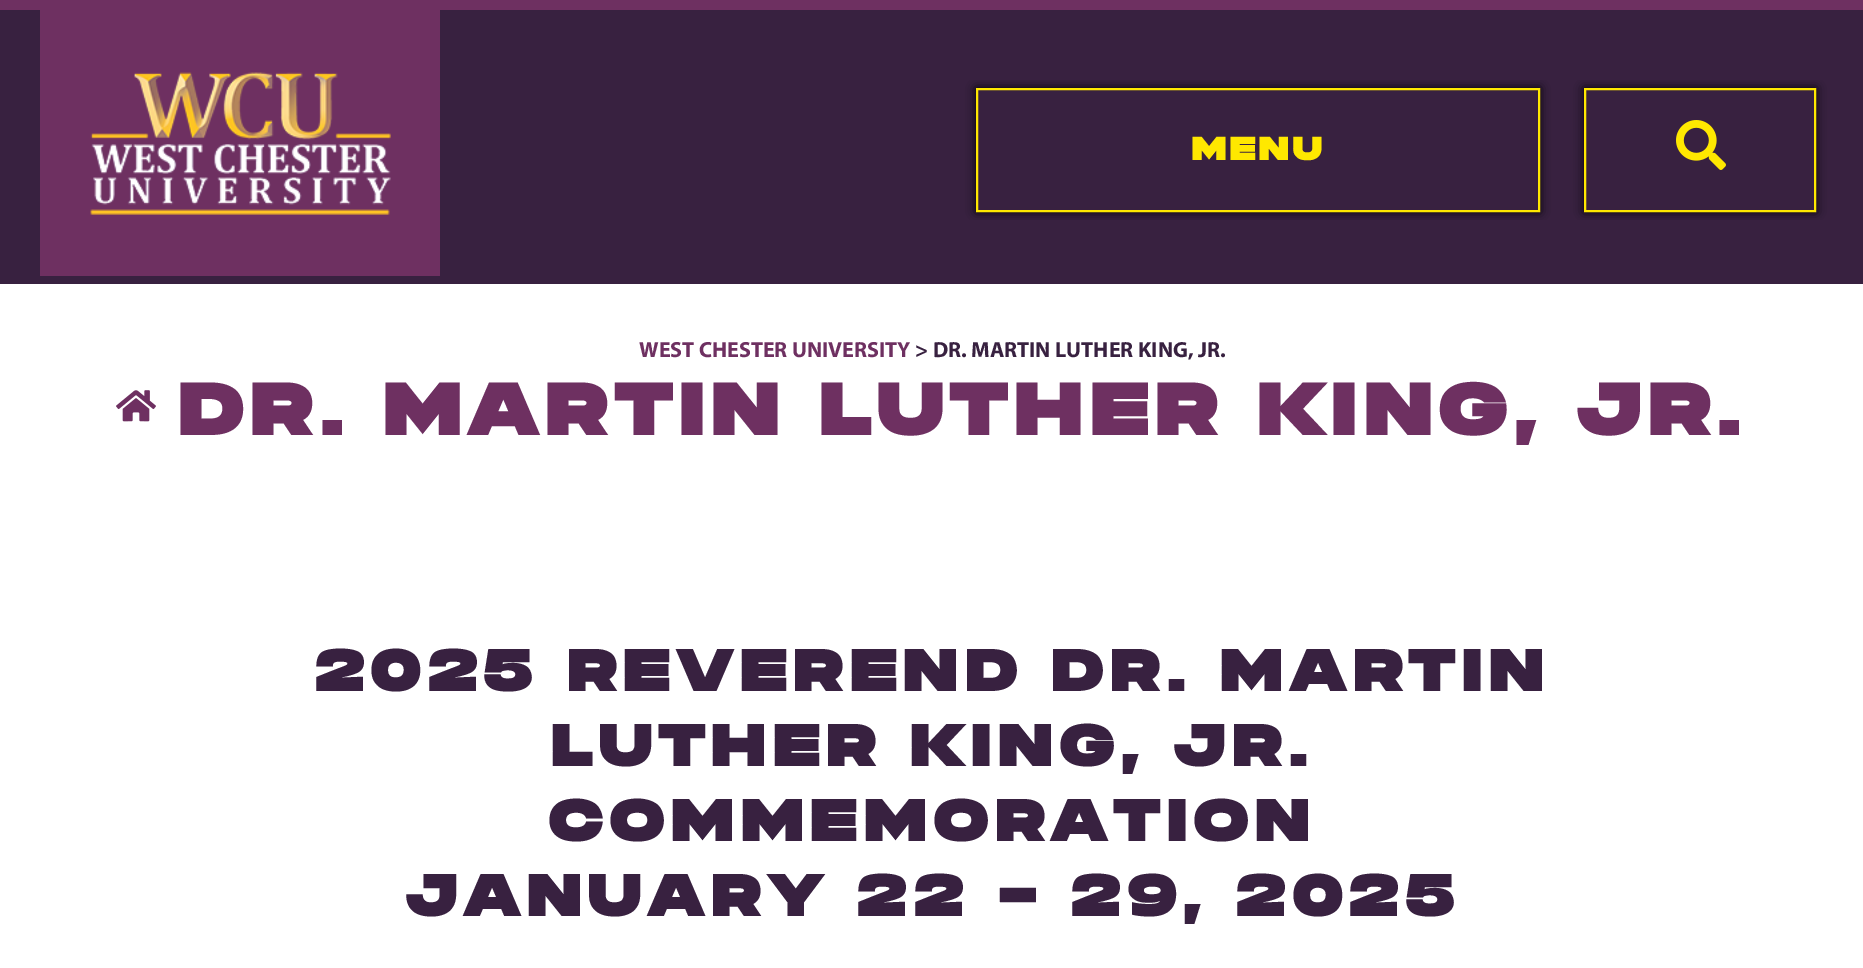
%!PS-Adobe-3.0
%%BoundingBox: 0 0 1863 968
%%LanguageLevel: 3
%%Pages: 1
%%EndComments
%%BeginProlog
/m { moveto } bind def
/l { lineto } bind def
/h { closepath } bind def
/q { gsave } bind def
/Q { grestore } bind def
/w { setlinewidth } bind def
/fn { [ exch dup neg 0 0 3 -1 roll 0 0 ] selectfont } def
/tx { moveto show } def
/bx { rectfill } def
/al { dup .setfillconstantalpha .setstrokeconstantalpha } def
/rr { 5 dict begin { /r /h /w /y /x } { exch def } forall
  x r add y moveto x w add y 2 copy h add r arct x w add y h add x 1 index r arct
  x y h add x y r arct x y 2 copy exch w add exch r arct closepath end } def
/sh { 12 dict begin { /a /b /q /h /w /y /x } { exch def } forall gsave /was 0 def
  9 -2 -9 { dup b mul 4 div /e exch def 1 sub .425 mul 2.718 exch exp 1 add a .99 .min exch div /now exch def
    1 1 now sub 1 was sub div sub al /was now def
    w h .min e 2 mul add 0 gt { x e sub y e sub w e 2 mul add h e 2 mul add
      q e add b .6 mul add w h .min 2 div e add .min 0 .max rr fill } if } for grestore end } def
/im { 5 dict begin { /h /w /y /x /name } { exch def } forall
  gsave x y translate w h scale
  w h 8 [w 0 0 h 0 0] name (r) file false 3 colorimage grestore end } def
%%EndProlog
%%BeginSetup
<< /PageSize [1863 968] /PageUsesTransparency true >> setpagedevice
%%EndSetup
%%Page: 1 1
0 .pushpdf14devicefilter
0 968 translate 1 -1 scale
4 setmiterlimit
0.22 0.129 0.251 setrgbcolor
0 0 1863 968 bx
0.431 0.188 0.38 setrgbcolor
0 0 1863 10 bx
(image0.raw) 40 10 400 266 im
q
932 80 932 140 rectclip
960 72 m 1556 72 l 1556 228 l 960 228 l h 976 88 m 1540 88 l 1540 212 l 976 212 l h eoclip newpath
0 setgray
976 88 564 124 0 5 1 sh
Q
1 0.91 0 setrgbcolor
2 w
977 89 562 122 rectstroke
/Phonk-Bold 32 fn
1191 160 m 3 0 (MENU) ashow
q
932 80 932 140 rectclip
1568 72 m 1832 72 l 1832 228 l 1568 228 l h 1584 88 m 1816 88 l 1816 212 l 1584 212 l h eoclip newpath
0 setgray
1584 88 232 124 0 5 1 sh
Q
1585 89 230 122 rectstroke
(image1.raw) 1676 120 50 50 im
1 setgray
0 284 1863 684 bx
/Myriad-Bold 22 fn
0.431 0.188 0.38 setrgbcolor
(WEST CHESTER UNIVERSITY) 639 357 tx
0.22 0.129 0.251 setrgbcolor
(> DR. MARTIN LUTHER KING, JR.) 915 357 tx
(image2.raw) 116 390 40 32 im
/Phonk-Bold 72 fn
0.431 0.188 0.38 setrgbcolor
177 435 m 6.4 0 (DR. MARTIN LUTHER KING, JR.) ashow
/Phonk-Bold 57.6 fn
0.22 0.129 0.251 setrgbcolor
314 691 m 6.4 0 (2025 REVEREND DR. MARTIN) ashow
550 766 m 6.4 0 (LUTHER KING, JR.) ashow
548 841 m 6.4 0 (COMMEMORATION) ashow
405 916 m 6.4 0 (JANUARY 22 - 29, 2025) ashow
.poppdf14devicefilter showpage
%%EOF
